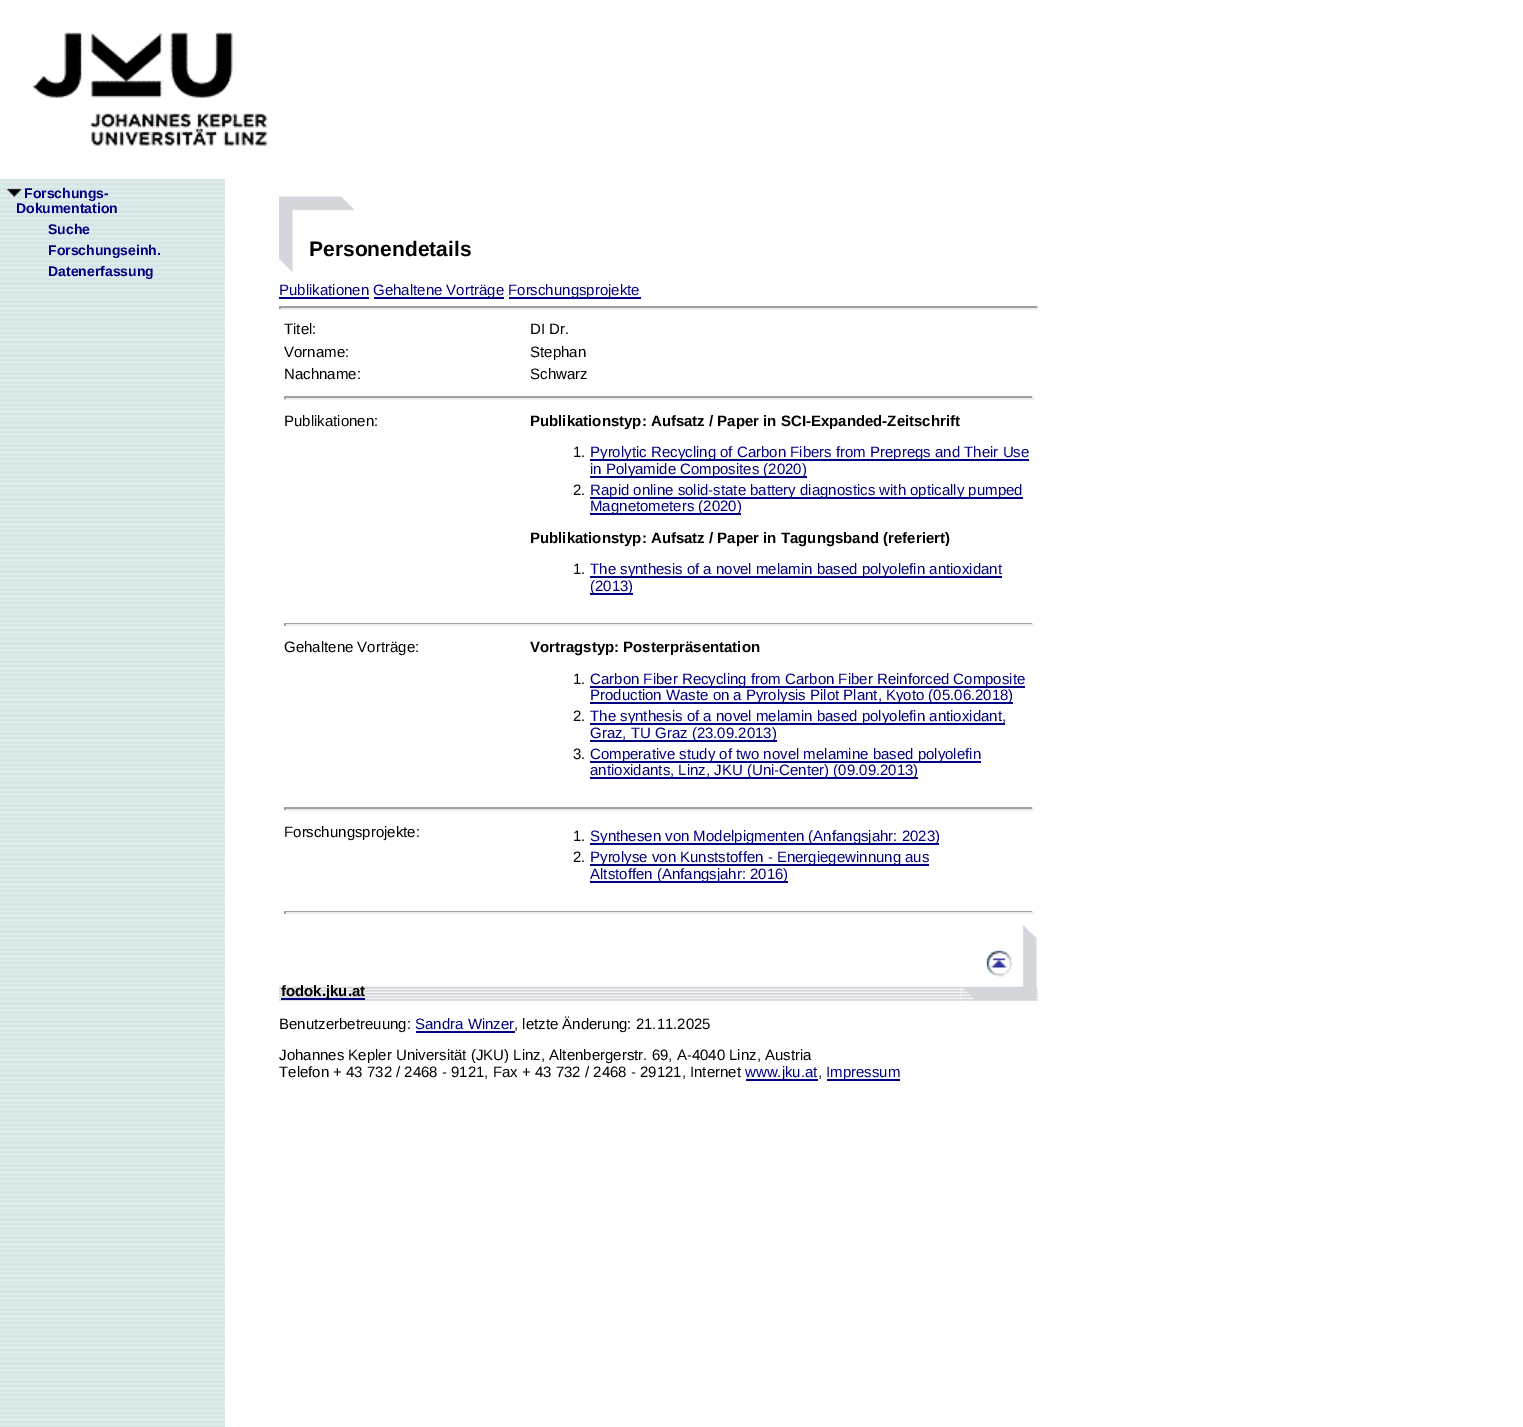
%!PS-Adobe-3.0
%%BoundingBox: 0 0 1523 1427
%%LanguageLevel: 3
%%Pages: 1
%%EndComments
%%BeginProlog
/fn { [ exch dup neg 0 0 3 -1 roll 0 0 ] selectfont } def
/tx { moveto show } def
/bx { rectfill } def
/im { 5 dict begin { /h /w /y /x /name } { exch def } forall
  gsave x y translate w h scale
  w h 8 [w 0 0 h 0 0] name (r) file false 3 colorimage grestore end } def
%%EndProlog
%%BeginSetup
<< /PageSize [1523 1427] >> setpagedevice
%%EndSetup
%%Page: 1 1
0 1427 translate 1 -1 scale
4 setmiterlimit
1 setgray
0 0 1523 1427 bx
(image1.raw) 0 178 225 1249 im
(image0.raw) 0 32 268 147 im
(image2.raw) 7 188 15 9 im
/LiberationSans-Bold 14 fn
0 0 0.502 setrgbcolor
(Forschungs-) 24 198 tx
(Dokumentation) 16 213 tx
(Suche) 48 234 tx
(Forschungseinh.) 48 255 tx
(Datenerfassung) 48 276 tx
(image3.raw) 279 196 75 76 im
/LiberationSans-Bold 21 fn
0 setgray
(Personendetails) 309 256 tx
/LiberationSans-Regular 15 fn
0 0 0.502 setrgbcolor
(Publikationen) 279 295 tx
279 297 90 2 bx
374 297 130 2 bx
(Gehaltene Vorträge) 373 295 tx
509 297 132 2 bx
(Forschungsprojekte) 508 295 tx
0.624 setgray
279 306 759 2 bx
0.933 setgray
1037 306 2 3 bx
279 308 759 2 bx
0.624 setgray
279 306 2 3 bx
0 setgray
(Titel:) 284 334 tx
(DI Dr.) 530 334 tx
(Vorname:) 284 357 tx
(Stephan) 530 357 tx
(Nachname:) 284 379 tx
(Schwarz) 530 379 tx
0.624 setgray
284 396 750 2 bx
0.933 setgray
1032 396 2 3 bx
284 398 750 2 bx
0.624 setgray
284 396 2 3 bx
0 setgray
(Publikationen:) 284 426 tx
/LiberationSans-Bold 15 fn
(Publikationstyp: Aufsatz / Paper in SCI-Expanded-Zeitschrift) 530 426 tx
/LiberationSans-Regular 15 fn
(1.) 573 457 tx
0 0 0.502 setrgbcolor
590 459 439 2 bx
(Pyrolytic Recycling of Carbon Fibers from Prepregs and Their Use) 590 457 tx
590 476 217 2 bx
(in Polyamide Composites \(2020\)) 590 474 tx
0 setgray
(2.) 573 495 tx
0 0 0.502 setrgbcolor
590 497 433 2 bx
(Rapid online solid-state battery diagnostics with optically pumped) 590 495 tx
590 513 151 2 bx
(Magnetometers \(2020\)) 590 511 tx
/LiberationSans-Bold 15 fn
0 setgray
(Publikationstyp: Aufsatz / Paper in Tagungsband \(referiert\)) 530 543 tx
/LiberationSans-Regular 15 fn
(1.) 573 574 tx
0 0 0.502 setrgbcolor
590 576 412 2 bx
(The synthesis of a novel melamin based polyolefin antioxidant) 590 574 tx
590 593 43 2 bx
(\(2013\)) 590 591 tx
0.624 setgray
284 623 750 1 bx
0.933 setgray
1032 623 2 3 bx
284 624 750 2 bx
0.624 setgray
284 623 2 3 bx
0 setgray
(Gehaltene Vorträge:) 284 652 tx
/LiberationSans-Bold 15 fn
(Vortragstyp: Posterpräsentation) 530 652 tx
/LiberationSans-Regular 15 fn
(1.) 573 684 tx
0 0 0.502 setrgbcolor
590 686 435 2 bx
(Carbon Fiber Recycling from Carbon Fiber Reinforced Composite) 590 684 tx
590 702 423 2 bx
(Production Waste on a Pyrolysis Pilot Plant, Kyoto \(05.06.2018\)) 590 700 tx
0 setgray
(2.) 573 721 tx
0 0 0.502 setrgbcolor
590 723 415 2 bx
(The synthesis of a novel melamin based polyolefin antioxidant,) 590 721 tx
590 740 187 2 bx
(Graz, TU Graz \(23.09.2013\)) 590 738 tx
0 setgray
(3.) 573 759 tx
0 0 0.502 setrgbcolor
590 761 391 2 bx
(Comperative study of two novel melamine based polyolefin) 590 759 tx
590 777 328 2 bx
(antioxidants, Linz, JKU \(Uni-Center\) \(09.09.2013\)) 590 775 tx
0.624 setgray
284 807 750 2 bx
0.933 setgray
1032 807 2 3 bx
284 809 750 2 bx
0.624 setgray
284 807 2 3 bx
0 setgray
(Forschungsprojekte:) 284 837 tx
(1.) 573 841 tx
0 0 0.502 setrgbcolor
590 843 349 2 bx
(Synthesen von Modelpigmenten \(Anfangsjahr: 2023\)) 590 841 tx
0 setgray
(2.) 573 862 tx
0 0 0.502 setrgbcolor
590 864 339 2 bx
(Pyrolyse von Kunststoffen - Energiegewinnung aus) 590 862 tx
590 881 198 2 bx
(Altstoffen \(Anfangsjahr: 2016\)) 590 879 tx
0.624 setgray
284 911 750 1 bx
0.933 setgray
1032 911 2 3 bx
284 912 750 2 bx
0.624 setgray
284 911 2 3 bx
(image4.raw) 279 986 759 15 im
(image5.raw) 279 986 681 15 im
0 0 0.502 setrgbcolor
281 998 84 2 bx
/LiberationSans-Bold 15 fn
0 setgray
(fodok.jku.at) 281 996 tx
(image6.raw) 961 925 76 76 im
(image7.raw) 986 950 27 27 im
/LiberationSans-Regular 15 fn
(Benutzerbetreuung:) 279 1029 tx
0 0 0.502 setrgbcolor
(Sandra Winzer) 415 1029 tx
416 1031 99 2 bx
0 setgray
(, letzte Änderung: 21.11.2025) 514 1029 tx
(Johannes Kepler Universität \(JKU\) Linz, Altenbergerstr. 69, A-4040 Linz, Austria) 279 1060 tx
(Telefon + 43 732 / 2468 - 9121, Fax + 43 732 / 2468 - 29121, Internet) 279 1077 tx
0 0 0.502 setrgbcolor
746 1079 72 2 bx
(www.jku.at) 745 1077 tx
0 setgray
(,) 818 1077 tx
0 0 0.502 setrgbcolor
827 1079 73 2 bx
(Impressum) 826 1077 tx
showpage
%%EOF
